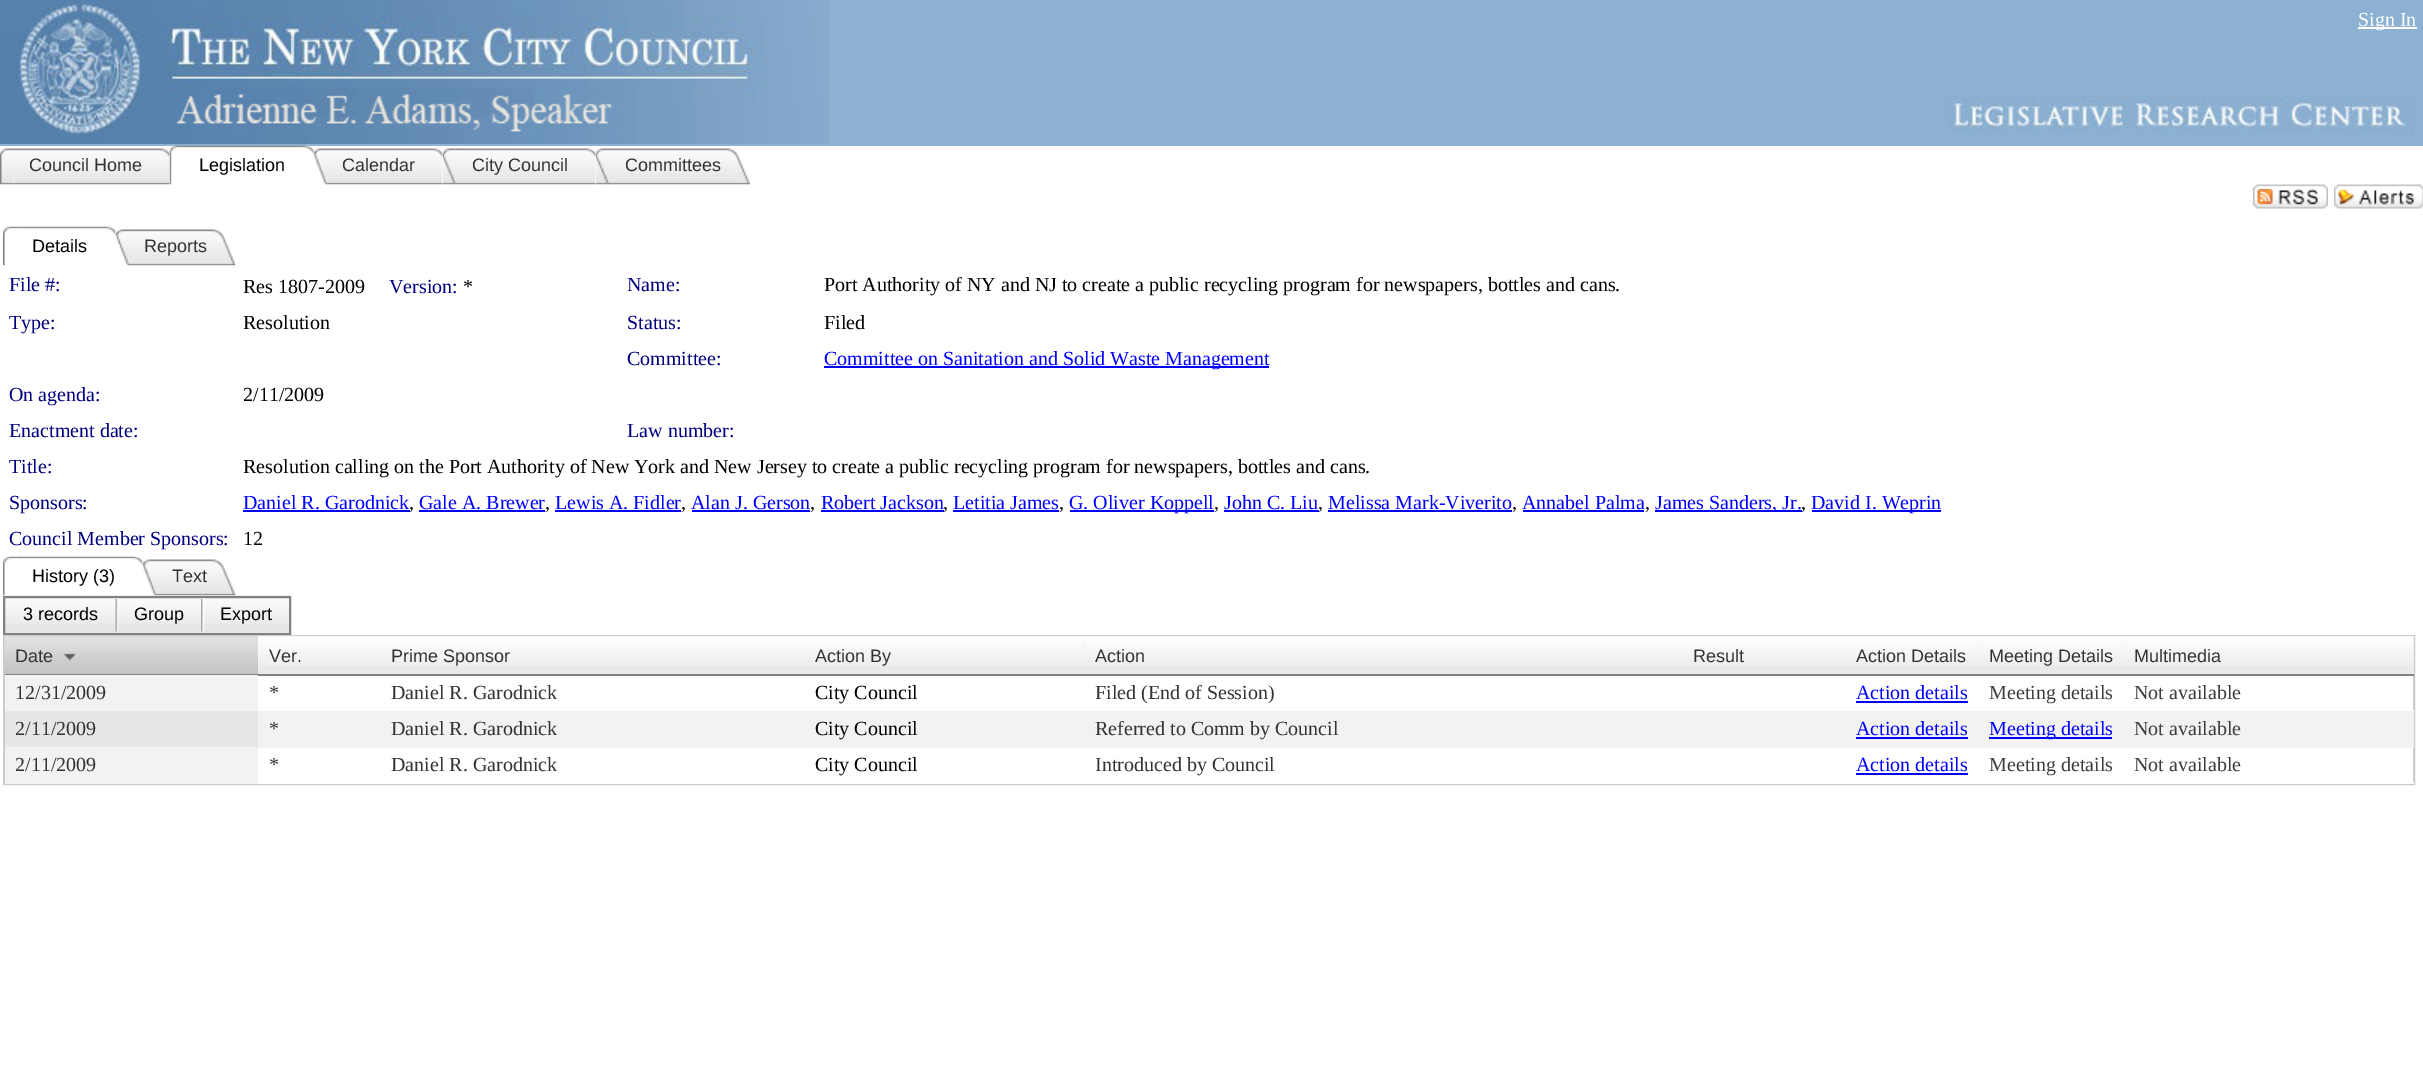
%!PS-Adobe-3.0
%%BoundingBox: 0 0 2423 1070
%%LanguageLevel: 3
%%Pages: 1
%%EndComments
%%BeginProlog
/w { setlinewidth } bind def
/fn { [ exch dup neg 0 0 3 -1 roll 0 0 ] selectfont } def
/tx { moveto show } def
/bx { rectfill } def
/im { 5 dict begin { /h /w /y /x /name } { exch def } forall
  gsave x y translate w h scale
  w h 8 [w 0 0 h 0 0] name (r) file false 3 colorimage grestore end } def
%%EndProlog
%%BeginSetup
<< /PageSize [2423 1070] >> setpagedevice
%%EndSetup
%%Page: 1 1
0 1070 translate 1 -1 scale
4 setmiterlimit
1 setgray
0 0 2423 1070 bx
0.549 0.694 0.824 setrgbcolor
0 0 2423 146 bx
(image0.raw) 0 0 830 144 im
(image1.raw) 1947 96 468 36 im
1 setgray
2358 27 59 2 bx
/LiberationSerif-Regular 20 fn
(Sign In) 2358 26 tx
(image2.raw) 0 148 14 37 im
(image3.raw) 13 148 157 37 im
/LiberationSans-Regular 18 fn
0.2 setgray
(Council Home) 29 171 tx
(image4.raw) 169 145 15 40 im
(image5.raw) 183 145 131 9 im
0 setgray
(Legislation) 199 171 tx
(image6.raw) 313 148 15 37 im
(image7.raw) 327 148 116 37 im
0.2 setgray
(Calendar) 342 171 tx
(image8.raw) 442 148 15 37 im
(image9.raw) 456 148 140 37 im
(City Council) 472 171 tx
(image10.raw) 595 148 15 37 im
(image11.raw) 609 148 141 37 im
(Committees) 625 171 tx
(image12.raw) 2253 184 75 25 im
(image13.raw) 2334 184 89 25 im
(image14.raw) 3 226 14 40 im
(image15.raw) 16 226 100 9 im
0 setgray
(Details) 32 252 tx
(image16.raw) 115 229 15 37 im
(image17.raw) 129 229 107 37 im
0.2 setgray
(Reports) 144 252 tx
/LiberationSerif-Regular 20 fn
0 0 0.502 setrgbcolor
(File #:) 9 291 tx
0 setgray
(Res 1807-2009) 243 293 tx
0 0 0.502 setrgbcolor
(Version:) 389 293 tx
0 setgray
(*) 463 293 tx
0 0 0.502 setrgbcolor
(Name:) 627 291 tx
0 setgray
(Port Authority of NY and NJ to create a public recycling program for newspapers, bottles and cans.) 824 291 tx
0 0 0.502 setrgbcolor
(Type:) 9 329 tx
0 setgray
(Resolution) 243 329 tx
0 0 0.502 setrgbcolor
(Status:) 627 329 tx
0 setgray
(Filed) 824 329 tx
0 0 0.502 setrgbcolor
(Committee:) 627 365 tx
0 0 1 setrgbcolor
824 366 445 2 bx
(Committee on Sanitation and Solid Waste Management) 824 365 tx
0 0 0.502 setrgbcolor
(On agenda:) 9 401 tx
0 setgray
(2/11/2009) 243 401 tx
0 0 0.502 setrgbcolor
(Enactment date:) 9 437 tx
(Law number:) 627 437 tx
(Title:) 9 473 tx
0 setgray
(Resolution calling on the Port Authority of New York and New Jersey to create a public recycling program for newspapers, bottles and cans.) 243 473 tx
0 0 0.502 setrgbcolor
(Sponsors:) 9 509 tx
0 0 1 setrgbcolor
(Daniel R. Garodnick) 243 509 tx
243 510 167 2 bx
0 setgray
(,) 409 509 tx
0 0 1 setrgbcolor
(Gale A. Brewer) 419 509 tx
0 setgray
(,) 545 509 tx
0 0 1 setrgbcolor
419 510 126 2 bx
(Lewis A. Fidler) 555 509 tx
0 setgray
(,) 681 509 tx
0 0 1 setrgbcolor
555 510 126 2 bx
(Alan J. Gerson) 691 509 tx
0 setgray
(,) 810 509 tx
0 0 1 setrgbcolor
692 510 118 2 bx
(Robert Jackson) 821 509 tx
821 510 123 2 bx
0 setgray
(,) 943 509 tx
0 0 1 setrgbcolor
(Letitia James) 953 509 tx
0 setgray
(,) 1059 509 tx
0 0 1 setrgbcolor
953 510 106 2 bx
1070 510 144 2 bx
(G. Oliver Koppell) 1069 509 tx
0 setgray
(,) 1214 509 tx
0 0 1 setrgbcolor
(John C. Liu) 1224 509 tx
1224 510 95 2 bx
0 setgray
(,) 1318 509 tx
0 0 1 setrgbcolor
(Melissa Mark-Viverito) 1328 509 tx
0 setgray
(,) 1512 509 tx
0 0 1 setrgbcolor
1328 510 184 2 bx
(Annabel Palma) 1522 509 tx
0 setgray
(,) 1645 509 tx
0 0 1 setrgbcolor
1523 510 121 2 bx
1655 510 147 2 bx
(James Sanders, Jr.) 1655 509 tx
0 setgray
(,) 1801 509 tx
0 0 1 setrgbcolor
1812 510 129 2 bx
(David I. Weprin) 1811 509 tx
0 0 0.502 setrgbcolor
(Council Member Sponsors:) 9 545 tx
0 setgray
(12) 243 545 tx
(image18.raw) 3 556 14 40 im
(image19.raw) 16 556 127 9 im
/LiberationSans-Regular 18 fn
(History \(3\)) 32 582 tx
(image20.raw) 142 559 15 37 im
(image21.raw) 156 559 80 37 im
0.2 setgray
(Text) 172 582 tx
0.902 setgray
5 624 284 9 bx
(image22.raw) 3 595 288 29 im
0.51 setgray
2 w
4 597 286 37 rectstroke
0 setgray
(3 records) 23 620 tx
(image23.raw) 115 598 4 34 im
(Group) 134 620 tx
(image24.raw) 201 598 4 34 im
(Export) 220 620 tx
0.8 setgray
4 636 2410 148 rectstroke
0.769 setgray
5 636 253 38 bx
(image25.raw) 4 636 254 37 im
0.51 setgray
5 674 253 1 bx
0.2 setgray
(Date) 15 662 tx
(image26.raw) 64 653 12 8 im
0.918 setgray
258 636 2156 38 bx
(image27.raw) 258 636 123 30 im
0.51 setgray
258 674 2156 2 bx
0.2 setgray
(Ver.) 269 662 tx
(image28.raw) 381 636 423 30 im
(Prime Sponsor) 391 662 tx
(image29.raw) 804 636 281 30 im
(Action By) 815 662 tx
(image30.raw) 1084 636 599 30 im
(Action) 1095 662 tx
(image31.raw) 1683 636 162 30 im
(Result) 1693 662 tx
(image32.raw) 1845 636 134 30 im
(Action Details) 1856 662 tx
(image33.raw) 1978 636 145 30 im
(Meeting Details) 1989 662 tx
(image34.raw) 2122 636 292 30 im
(Multimedia) 2134 662 tx
0.949 setgray
5 675 253 36 bx
/LiberationSerif-Regular 20 fn
0.2 setgray
(12/31/2009) 15 699 tx
(*) 269 699 tx
(Daniel R. Garodnick) 391 699 tx
0 setgray
(City Council) 815 699 tx
0.2 setgray
(Filed \(End of Session\)) 1095 699 tx
0 0 1 setrgbcolor
(Action details) 1856 699 tx
1856 701 112 2 bx
0.239 setgray
(Meeting details) 1989 699 tx
1 setgray
2413 710 1 1 bx
0.239 setgray
(Not available) 2134 699 tx
0.949 setgray
258 711 2156 35 bx
0.902 setgray
5 711 253 36 bx
0.2 setgray
(2/11/2009) 15 735 tx
0.949 setgray
258 746 2156 2 bx
0.2 setgray
(*) 269 735 tx
(Daniel R. Garodnick) 391 735 tx
0 setgray
(City Council) 815 735 tx
0.2 setgray
(Referred to Comm by Council) 1095 735 tx
0 0 1 setrgbcolor
(Action details) 1856 735 tx
1856 737 112 2 bx
1989 737 123 2 bx
(Meeting details) 1989 735 tx
0.239 setgray
(Not available) 2134 735 tx
0.949 setgray
5 747 253 37 bx
0.2 setgray
(2/11/2009) 15 771 tx
1 setgray
258 783 1865 1 bx
0.2 setgray
(*) 269 771 tx
(Daniel R. Garodnick) 391 771 tx
0 setgray
(City Council) 815 771 tx
0.2 setgray
(Introduced by Council) 1095 771 tx
0 0 1 setrgbcolor
(Action details) 1856 771 tx
1856 773 112 2 bx
0.239 setgray
(Meeting details) 1989 771 tx
1 setgray
2123 782 291 2 bx
0.239 setgray
(Not available) 2134 771 tx
showpage
%%EOF
